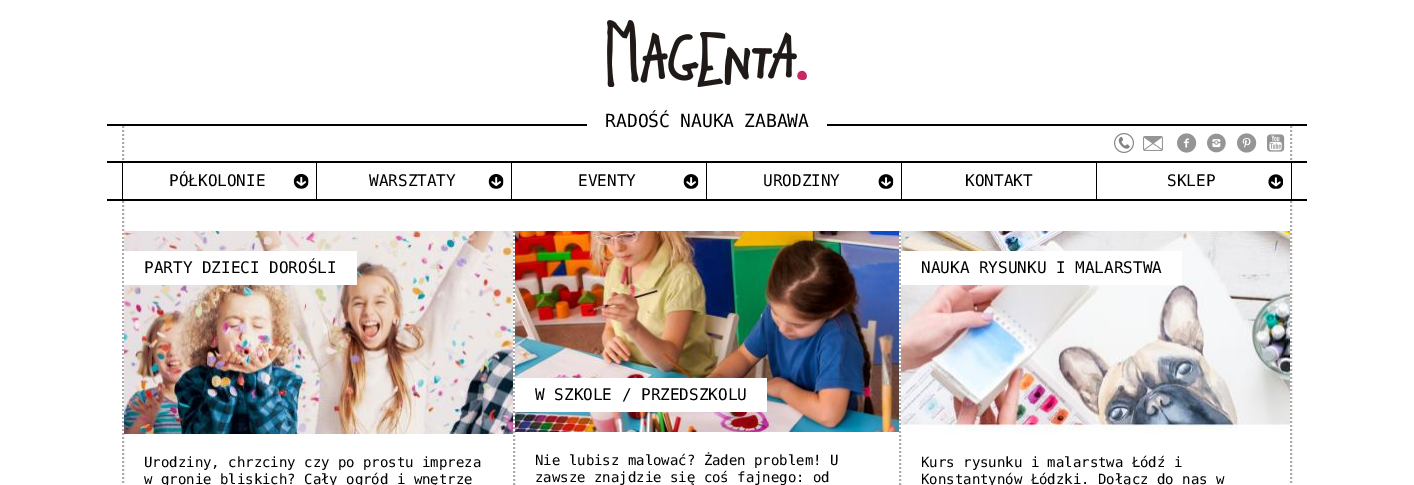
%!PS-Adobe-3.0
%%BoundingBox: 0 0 1414 485
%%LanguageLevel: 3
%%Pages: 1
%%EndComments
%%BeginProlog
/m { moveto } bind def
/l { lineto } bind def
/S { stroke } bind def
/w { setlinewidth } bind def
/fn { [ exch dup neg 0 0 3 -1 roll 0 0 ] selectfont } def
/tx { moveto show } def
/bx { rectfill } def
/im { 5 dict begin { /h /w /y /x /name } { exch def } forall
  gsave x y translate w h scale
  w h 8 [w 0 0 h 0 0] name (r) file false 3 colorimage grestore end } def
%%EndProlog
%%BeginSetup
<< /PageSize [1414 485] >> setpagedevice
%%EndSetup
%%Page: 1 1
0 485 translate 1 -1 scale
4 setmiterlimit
1 setgray
0 0 1414 485 bx
(image0.raw) 607 20 200 67 im
0 setgray
107 124 1200 2 bx
1 setgray
587 124 240 2 bx
/DejaVuSansMono-Regular 18 fn
0 setgray
(RADOŚĆ) 605 127 tx
(NAUKA) 680 127 tx
(ZABAWA) 744 127 tx
0.671 setgray
2 w
[2 2] 0 setdash
1291 126 m 1291 161 l S
123 126 m 123 161 l S
(image1.raw) 1114 133 20 20 im
(image2.raw) 1143 136 20 15 im
(image3.raw) 1177 133 20 20 im
(image4.raw) 1207 133 19 20 im
(image5.raw) 1237 133 20 20 im
(image6.raw) 1267 134 18 18 im
0 setgray
107 161 1200 2 bx
107 199 1200 2 bx
316 163 1 36 bx
122 163 1 36 bx
/DejaVuSansMono-Regular 16 fn
(PÓŁKOLONIE) 169 186 tx
(image7.raw) 293 174 16 15 im
511 163 1 36 bx
(WARSZTATY) 369 186 tx
(image8.raw) 488 174 16 15 im
706 163 1 36 bx
(EVENTY) 578 186 tx
(image9.raw) 683 174 16 15 im
901 163 1 36 bx
(URODZINY) 763 186 tx
(image10.raw) 878 174 16 15 im
1096 163 1 36 bx
(KONTAKT) 965 186 tx
1291 163 1 36 bx
(SKLEP) 1167 186 tx
(image11.raw) 1268 174 15 15 im
0.671 setgray
1291 201 m 1291 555 l S
123 201 m 123 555 l S
(image12.raw) 124 231 389 203 im
1 setgray
124 251 233 34 bx
0 setgray
(PARTY DZIECI DOROŚLI) 144 273 tx
/DejaVuSansMono-Regular 14 fn
(Urodziny, chrzciny czy po prostu impreza) 144 467 tx
(w gronie bliskich? Cały ogród i wnętrze) 144 484 tx
0.671 setgray
900 231 m 900 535 l S
514 231 m 514 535 l S
(image13.raw) 515 231 384 201 im
1 setgray
515 378 252 34 bx
/DejaVuSansMono-Regular 16 fn
0 setgray
(W SZKOLE / PRZEDSZKOLU) 535 400 tx
/DejaVuSansMono-Regular 14 fn
(Nie lubisz malować? Żaden problem! U) 535 465 tx
(zawsze znajdzie się coś fajnego: od) 535 482 tx
(image14.raw) 901 231 389 203 im
1 setgray
901 251 281 34 bx
/DejaVuSansMono-Regular 16 fn
0 setgray
(NAUKA RYSUNKU I MALARSTWA) 921 273 tx
/DejaVuSansMono-Regular 14 fn
(Kurs rysunku i malarstwa Łódź i) 921 467 tx
(Konstantynów Łódzki. Dołącz do nas w) 921 484 tx
showpage
%%EOF
